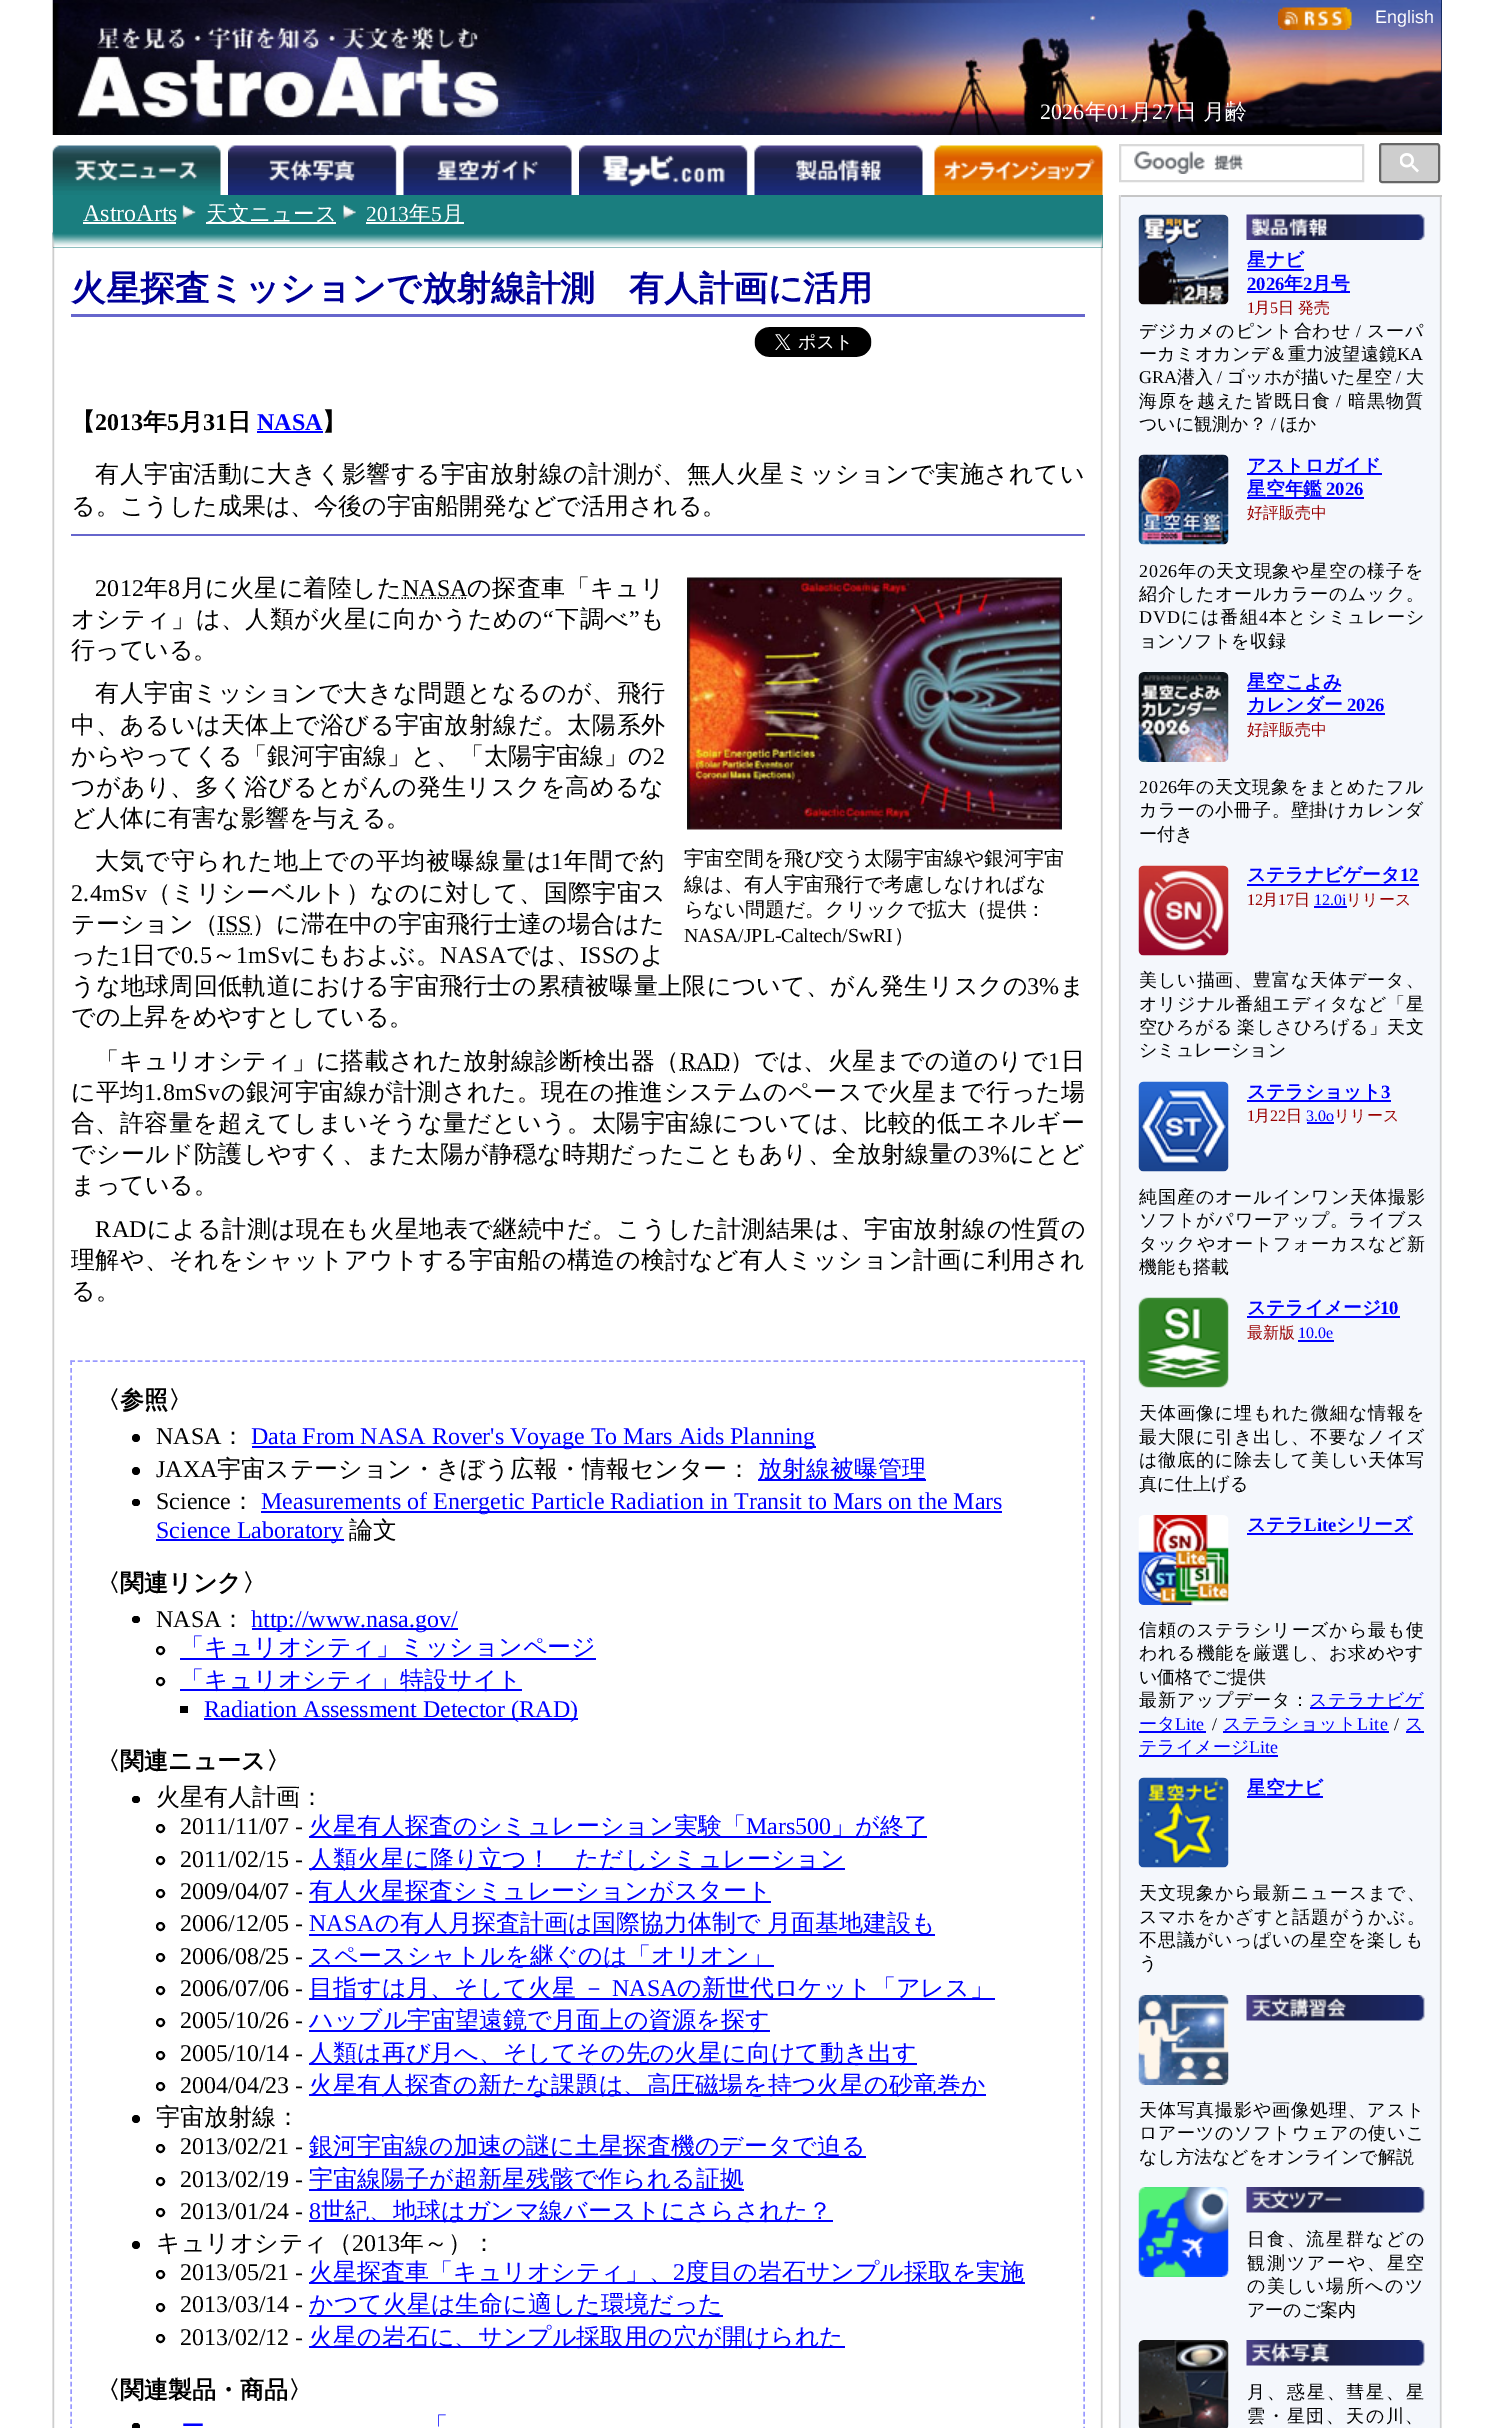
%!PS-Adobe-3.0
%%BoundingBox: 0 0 1493 2428
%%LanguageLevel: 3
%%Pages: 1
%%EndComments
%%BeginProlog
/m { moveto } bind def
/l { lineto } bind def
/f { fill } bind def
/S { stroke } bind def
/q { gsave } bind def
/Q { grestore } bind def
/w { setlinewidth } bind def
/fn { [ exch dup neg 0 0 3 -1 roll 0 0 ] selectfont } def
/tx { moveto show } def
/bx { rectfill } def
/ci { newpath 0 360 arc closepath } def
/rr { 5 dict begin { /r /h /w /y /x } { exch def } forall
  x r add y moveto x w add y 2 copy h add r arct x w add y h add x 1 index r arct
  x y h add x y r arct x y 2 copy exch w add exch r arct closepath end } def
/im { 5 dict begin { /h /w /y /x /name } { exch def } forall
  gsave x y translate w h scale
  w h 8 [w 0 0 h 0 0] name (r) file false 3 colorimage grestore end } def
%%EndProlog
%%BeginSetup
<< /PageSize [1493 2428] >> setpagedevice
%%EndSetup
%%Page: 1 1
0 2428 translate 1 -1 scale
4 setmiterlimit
1 setgray
0 0 1493 2428 bx
0.004 0.102 0.298 setrgbcolor
1441 0 1 135 bx
(image0.raw) 52 0 1390 135 im
(image1.raw) 1278 7 74 23 im
/LiberationSans-Regular 18 fn
1 setgray
(English) 1375 23 tx
/LiberationSerif-Regular 22 fn
(2026) 1040 119 tx
/WenQuanYiZenHei-Medium 22 fn
(年) 1085 119 tx
/LiberationSerif-Regular 22 fn
(01) 1107 119 tx
/WenQuanYiZenHei-Medium 22 fn
(月) 1130 119 tx
/LiberationSerif-Regular 22 fn
(27) 1152 119 tx
/WenQuanYiZenHei-Medium 22 fn
(日) 1175 119 tx
(月齢) 1203 119 tx
0.851 setgray
2 w
1120 145 243 36 rectstroke
(image2.raw) 1134 151 110 23 im
0.808 setgray
1380 144 59 38 2 rr q f Q
0.4 setgray
S
(image3.raw) 1400 153 19 20 im
(image4.raw) 52 145 169 50 im
(image5.raw) 228 145 169 50 im
(image6.raw) 403 145 169 50 im
(image7.raw) 579 145 169 50 im
(image8.raw) 754 145 169 50 im
(image9.raw) 934 145 169 50 im
(image10.raw) 52 195 1390 2233 im
0.102 0.494 0.498 setrgbcolor
53 195 1050 53 bx
(image11.raw) 52 232 1051 16 im
/LiberationSerif-Regular 24 fn
1 setgray
(AstroArts) 83 221 tx
83 222 93 2 bx
(image12.raw) 182 205 14 15 im
206 222 130 2 bx
/WenQuanYiZenHei-Medium 21.5 fn
(天文ニュース) 206 221 tx
(image13.raw) 343 205 13 15 im
/LiberationSerif-Regular 21.5 fn
(2013) 366 221 tx
366 222 98 2 bx
/WenQuanYiZenHei-Medium 21.5 fn
(年) 409 221 tx
/LiberationSerif-Regular 21.5 fn
(5) 431 221 tx
/WenQuanYiZenHei-Medium 21.5 fn
(月) 442 221 tx
0.4 0.4 0.8 setrgbcolor
71 314 1014 3 bx
/WenQuanYiZenHei-Bold 34.6 fn
0 0 0.6 setrgbcolor
(火星探査ミッションで放射線計測　有人計画に活用) 71 300 tx
(image14.raw) 754 327 118 30 im
/WenQuanYiZenHei-Bold 24 fn
0 setgray
(【) 71 430 tx
/LiberationSerif-Bold 24 fn
(2013) 95 430 tx
/WenQuanYiZenHei-Bold 24 fn
(年) 143 430 tx
/LiberationSerif-Bold 24 fn
(5) 167 430 tx
/WenQuanYiZenHei-Bold 24 fn
(月) 179 430 tx
/LiberationSerif-Bold 24 fn
(31) 203 430 tx
/WenQuanYiZenHei-Bold 24 fn
(日) 227 430 tx
/LiberationSerif-Bold 24 fn
0 0 1 setrgbcolor
(NASA) 257 430 tx
257 431 66 2 bx
/WenQuanYiZenHei-Bold 24 fn
0 setgray
(】) 322 430 tx
/WenQuanYiZenHei-Medium 24 fn
95 482 m 0.5 0 (有人宇宙活動に大きく影響する宇宙放射線の計測が、無人火星ミッションで実施されてい) ashow
(る。こうした成果は、今後の宇宙船開発などで活用される。) 71 514 tx
0.4 0.4 0.8 setrgbcolor
71 534 1014 2 bx
/LiberationSerif-Regular 24 fn
0 setgray
95 596 m 0.25 0 (2012) ashow
/WenQuanYiZenHei-Medium 24 fn
144 596 m 0.25 0 (年) ashow
/LiberationSerif-Regular 24 fn
168 596 m 0.25 0 (8) ashow
/WenQuanYiZenHei-Medium 24 fn
181 596 m 0.25 0 (月に火星に着陸した) ashow
/LiberationSerif-Regular 24 fn
(NASA) 402 596 tx
1.5 w
[1.5 1.5] 0 setdash
401.5 598 m 467 598 l S
/WenQuanYiZenHei-Medium 24 fn
467 596 m 0.5 0 (の探査車「キュリ) ashow
71 627 m 0.5 0 (オシティ」は、人類が火星に向かうための) ashow
/LiberationSerif-Regular 24 fn
543 627 m 0.5 0 (“) ashow
/WenQuanYiZenHei-Medium 24 fn
555 627 m 0.5 0 (下調べ) ashow
/LiberationSerif-Regular 24 fn
629 627 m 0.5 0 (”) ashow
/WenQuanYiZenHei-Medium 24 fn
640 627 m 0.5 0 (も) ashow
(行っている。) 71 658 tx
95 701 m 0.5 0 (有人宇宙ミッションで大きな問題となるのが、飛行) ashow
71 733 m 0.6 0 (中、あるいは天体上で浴びる宇宙放射線だ。太陽系外) ashow
(からやってくる「銀河宇宙線」と、「太陽宇宙線」の) 71 764 tx
/LiberationSerif-Regular 24 fn
(2) 653 764 tx
/WenQuanYiZenHei-Medium 24 fn
71 795 m 0.3 0 (つがあり、多く浴びるとがんの発生リスクを高めるな) ashow
(ど人体に有害な影響を与える。) 71 826 tx
95 869 m 1.2 0 (大気で守られた地上での平均被曝線量は) ashow
/LiberationSerif-Regular 24 fn
551 869 m 1.2 0 (1) ashow
/WenQuanYiZenHei-Medium 24 fn
564 869 m 1.2 0 (年間で約) ashow
/LiberationSerif-Regular 24 fn
71 901 m 0.4 0 (2.4mSv) ashow
/WenQuanYiZenHei-Medium 24 fn
147 901 m 0.4 0 (（ミリシーベルト）なのに対して、国際宇宙ス) ashow
71 932 m 0.1 0 (テーション（) ashow
/LiberationSerif-Regular 24 fn
(ISS) 217 932 tx
217.5 934 m 252 934 l S
/WenQuanYiZenHei-Medium 24 fn
252 932 m 0.1 0 (）に滞在中の宇宙飛行士達の場合はた) ashow
71 963 m 0.25 0 (った) ashow
/LiberationSerif-Regular 24 fn
120 963 m 0.25 0 (1) ashow
/WenQuanYiZenHei-Medium 24 fn
132 963 m 0.25 0 (日で) ashow
/LiberationSerif-Regular 24 fn
181 963 m 0.25 0 (0.5) ashow
/WenQuanYiZenHei-Medium 24 fn
212 963 m 0.25 0 (～) ashow
/LiberationSerif-Regular 24 fn
236 963 m 0.25 0 (1mSv) ashow
/WenQuanYiZenHei-Medium 24 fn
292 963 m 0.25 0 (にもおよぶ。) ashow
/LiberationSerif-Regular 24 fn
440 963 m 0.25 0 (NASA) ashow
/WenQuanYiZenHei-Medium 24 fn
506 963 m 0.25 0 (では、) ashow
/LiberationSerif-Regular 24 fn
580 963 m 0.25 0 (ISS) ashow
/WenQuanYiZenHei-Medium 24 fn
615 963 m 0.25 0 (のよ) ashow
71 994 m 0.3 0 (うな地球周回低軌道における宇宙飛行士の累積被曝量上限について、がん発生リスクの) ashow
/LiberationSerif-Regular 24 fn
1027 994 m 0.3 0 (3%) ashow
/WenQuanYiZenHei-Medium 24 fn
1060 994 m 0.3 0 (ま) ashow
(での上昇をめやすとしている。) 71 1025 tx
(image15.raw) 687 577 375 253 im
/WenQuanYiZenHei-Medium 19.9 fn
(宇宙空間を飛び交う太陽宇宙線や銀河宇宙) 684 865 tx
(線は、有人宇宙飛行で考慮しなければな) 684 891 tx
(らない問題だ。クリックで拡大（提供：) 684 916 tx
/LiberationSerif-Regular 19.9 fn
(NASA/JPL-Caltech/SwRI) 684 942 tx
/WenQuanYiZenHei-Medium 19.9 fn
(）) 894 942 tx
/WenQuanYiZenHei-Medium 24 fn
95 1069 m 0.1 0 (「キュリオシティ」に搭載された放射線診断検出器（) ashow
679.5 1070 m 730 1070 l S
/LiberationSerif-Regular 24 fn
(RAD) 680 1069 tx
/WenQuanYiZenHei-Medium 24 fn
730 1069 m 0.1 0 (）では、火星までの道のりで) ashow
/LiberationSerif-Regular 24 fn
1048 1069 m 0.1 0 (1) ashow
/WenQuanYiZenHei-Medium 24 fn
1061 1069 m 0.1 0 (日) ashow
71 1100 m 0.4 0 (に平均) ashow
/LiberationSerif-Regular 24 fn
144 1100 m 0.4 0 (1.8mSv) ashow
/WenQuanYiZenHei-Medium 24 fn
221 1100 m 0.4 0 (の銀河宇宙線が計測された。現在の推進システムのペースで火星まで行った場) ashow
71 1131 m 0.45 0 (合、許容量を超えてしまいそうな量だという。太陽宇宙線については、比較的低エネルギー) ashow
71 1162 m 0.2 0 (でシールド防護しやすく、また太陽が静穏な時期だったこともあり、全放射線量の) ashow
/LiberationSerif-Regular 24 fn
978 1162 m 0.2 0 (3%) ashow
/WenQuanYiZenHei-Medium 24 fn
1010 1162 m 0.2 0 (にとど) ashow
(まっている。) 71 1193 tx
/LiberationSerif-Regular 24 fn
95 1237 m 0.5 0 (RAD) ashow
/WenQuanYiZenHei-Medium 24 fn
147 1237 m 0.5 0 (による計測は現在も火星地表で継続中だ。こうした計測結果は、宇宙放射線の性質の) ashow
71 1268 m 0.4 0 (理解や、それをシャットアウトする宇宙船の構造の検討など有人ミッション計画に利用され) ashow
(る。) 71 1299 tx
0.6 0.6 1 setrgbcolor
[4.5 2.98] 0 setdash
70.5 1361 m 1084.5 1361 l S
[4.5 3.01] 0 setdash
1084 1360.5 m 1084 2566.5 l S
71 1360.5 m 71 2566.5 l S
/WenQuanYiZenHei-Bold 24 fn
0 setgray
(〈参照〉) 96 1408 tx
136 1438 4 ci f
/LiberationSerif-Regular 24 fn
(NASA) 156 1444 tx
/WenQuanYiZenHei-Medium 24 fn
(：) 221 1444 tx
0 0 1 setrgbcolor
252 1446 564 2 bx
/LiberationSerif-Regular 24 fn
(Data From NASA Rover's Voyage To Mars Aids Planning) 251 1444 tx
0 setgray
136 1471 4 ci f
(JAXA) 156 1477 tx
/WenQuanYiZenHei-Medium 24 fn
(宇宙ステーション・きぼう広報・情報センター：) 217 1477 tx
0 0 1 setrgbcolor
758 1479 168 2 bx
(放射線被曝管理) 758 1477 tx
0 setgray
132 1499 8 7 3.5 rr f
/LiberationSerif-Regular 24 fn
(Science) 156 1509 tx
/WenQuanYiZenHei-Medium 24 fn
(：) 231 1509 tx
0 0 1 setrgbcolor
261 1511 741 2 bx
/LiberationSerif-Regular 24 fn
(Measurements of Energetic Particle Radiation in Transit to Mars on the Mars) 261 1509 tx
156 1539 188 2 bx
(Science Laboratory) 156 1538 tx
/WenQuanYiZenHei-Medium 24 fn
0 setgray
(論文) 349 1538 tx
/WenQuanYiZenHei-Bold 24 fn
(〈関連リンク〉) 96 1591 tx
132 1616 8 7 3.5 rr f
/LiberationSerif-Regular 24 fn
(NASA) 156 1627 tx
/WenQuanYiZenHei-Medium 24 fn
(：) 221 1627 tx
0 0 1 setrgbcolor
252 1628 206 2 bx
/LiberationSerif-Regular 24 fn
(http://www.nasa.gov/) 251 1627 tx
0 setgray
2 w
[] 0 setdash
160.5 1650.5 3.5 ci S
0 0 1 setrgbcolor
180 1658 416 2 bx
/WenQuanYiZenHei-Medium 24 fn
(「キュリオシティ」ミッションページ) 180 1655 tx
0 setgray
160.5 1681.5 3.5 ci S
0 0 1 setrgbcolor
180 1689 342 2 bx
(「キュリオシティ」特設サイト) 180 1688 tx
0 setgray
180 1706 8 7 bx
0 0 1 setrgbcolor
204 1718 374 2 bx
/LiberationSerif-Regular 24 fn
(Radiation Assessment Detector \(RAD\)) 204 1717 tx
/WenQuanYiZenHei-Bold 24 fn
0 setgray
(〈関連ニュース〉) 96 1769 tx
132 1796 8 7 3.5 rr f
/WenQuanYiZenHei-Medium 24 fn
(火星有人計画：) 156 1805 tx
160.5 1828.5 3.5 ci S
/LiberationSerif-Regular 24 fn
(2011/11/07 -) 180 1834 tx
0 0 1 setrgbcolor
309 1836 618 2 bx
/WenQuanYiZenHei-Medium 24 fn
(火星有人探査のシミュレーション実験「) 309 1834 tx
/LiberationSerif-Regular 24 fn
(Mars500) 746 1834 tx
/WenQuanYiZenHei-Medium 24 fn
(」が終了) 831 1834 tx
0 setgray
160.5 1860.5 3.5 ci S
/LiberationSerif-Regular 24 fn
(2011/02/15 -) 180 1867 tx
0 0 1 setrgbcolor
309 1868 536 2 bx
/WenQuanYiZenHei-Medium 24 fn
(人類火星に降り立つ！　ただしシミュレーション) 309 1867 tx
0 setgray
160.5 1893.5 3.5 ci S
/LiberationSerif-Regular 24 fn
(2009/04/07 -) 180 1899 tx
0 0 1 setrgbcolor
309 1901 462 2 bx
/WenQuanYiZenHei-Medium 24 fn
(有人火星探査シミュレーションがスタート) 309 1899 tx
0 setgray
160.5 1926.5 3.5 ci S
/LiberationSerif-Regular 24 fn
(2006/12/05 -) 180 1931 tx
0 0 1 setrgbcolor
(NASA) 309 1931 tx
309 1934 626 2 bx
/WenQuanYiZenHei-Medium 24 fn
375 1931 m -1 0 32 (の有人月探査計画は国際協力体制で 月面基地建設も) widthshow
0 setgray
160.5 1957.5 3.5 ci S
/LiberationSerif-Regular 24 fn
(2006/08/25 -) 180 1964 tx
0 0 1 setrgbcolor
309 1965 465 2 bx
/WenQuanYiZenHei-Medium 24 fn
(スペースシャトルを継ぐのは「オリオン」) 309 1964 tx
0 setgray
160.5 1990.5 3.5 ci S
/LiberationSerif-Regular 24 fn
(2006/07/06 -) 180 1996 tx
0 0 1 setrgbcolor
309 1998 686 2 bx
/WenQuanYiZenHei-Medium 24 fn
309 1996 m -1 0 32 (目指すは月、そして火星 －) widthshow
/LiberationSerif-Regular 24 fn
(NASA) 612 1996 tx
/WenQuanYiZenHei-Medium 24 fn
(の新世代ロケット「アレス」) 677 1996 tx
0 setgray
160.5 2022.5 3.5 ci S
/LiberationSerif-Regular 24 fn
(2005/10/26 -) 180 2028 tx
0 0 1 setrgbcolor
309 2030 461 2 bx
/WenQuanYiZenHei-Medium 24 fn
(ハッブル宇宙望遠鏡で月面上の資源を探す) 309 2028 tx
0 setgray
160.5 2055.5 3.5 ci S
/LiberationSerif-Regular 24 fn
(2005/10/14 -) 180 2061 tx
0 0 1 setrgbcolor
309 2063 608 2 bx
/WenQuanYiZenHei-Medium 24 fn
(人類は再び月へ、そしてその先の火星に向けて動き出す) 309 2061 tx
0 setgray
160.5 2086.5 3.5 ci S
/LiberationSerif-Regular 24 fn
(2004/04/23 -) 180 2093 tx
0 0 1 setrgbcolor
309 2094 677 2 bx
/WenQuanYiZenHei-Medium 24 fn
(火星有人探査の新たな課題は、高圧磁場を持つ火星の砂竜巻か) 309 2093 tx
0 setgray
136 2119 4 ci f
(宇宙放射線：) 156 2125 tx
160.5 2148.5 3.5 ci S
/LiberationSerif-Regular 24 fn
(2013/02/21 -) 180 2154 tx
0 0 1 setrgbcolor
309 2156 557 2 bx
/WenQuanYiZenHei-Medium 24 fn
(銀河宇宙線の加速の謎に土星探査機のデータで迫る) 309 2154 tx
0 setgray
160.5 2181.5 3.5 ci S
/LiberationSerif-Regular 24 fn
(2013/02/19 -) 180 2187 tx
0 0 1 setrgbcolor
309 2189 435 2 bx
/WenQuanYiZenHei-Medium 24 fn
(宇宙線陽子が超新星残骸で作られる証拠) 309 2187 tx
0 setgray
160.5 2212.5 3.5 ci S
/LiberationSerif-Regular 24 fn
(2013/01/24 -) 180 2219 tx
0 0 1 setrgbcolor
(8) 309 2219 tx
309 2220 524 2 bx
/WenQuanYiZenHei-Medium 24 fn
(世紀、地球はガンマ線バーストにさらされた？) 321 2219 tx
0 setgray
136 2245 4 ci f
(キュリオシティ（) 156 2251 tx
/LiberationSerif-Regular 24 fn
(2013) 352 2251 tx
/WenQuanYiZenHei-Medium 24 fn
(年～）：) 400 2251 tx
160.5 2274.5 3.5 ci S
/LiberationSerif-Regular 24 fn
(2013/05/21 -) 180 2280 tx
0 0 1 setrgbcolor
309 2282 716 2 bx
/WenQuanYiZenHei-Medium 24 fn
(火星探査車「キュリオシティ」、) 309 2280 tx
/LiberationSerif-Regular 24 fn
(2) 673 2280 tx
/WenQuanYiZenHei-Medium 24 fn
(度目の岩石サンプル採取を実施) 685 2280 tx
0 setgray
160.5 2307.5 3.5 ci S
/LiberationSerif-Regular 24 fn
(2013/03/14 -) 180 2312 tx
0 0 1 setrgbcolor
309 2315 414 2 bx
/WenQuanYiZenHei-Medium 24 fn
(かつて火星は生命に適した環境だった) 309 2312 tx
0 setgray
160.5 2338.5 3.5 ci S
/LiberationSerif-Regular 24 fn
(2013/02/12 -) 180 2345 tx
0 0 1 setrgbcolor
309 2346 536 2 bx
/WenQuanYiZenHei-Medium 24 fn
(火星の岩石に、サンプル採取用の穴が開けられた) 309 2345 tx
/WenQuanYiZenHei-Bold 24 fn
0 setgray
(〈関連製品・商品〉) 96 2398 tx
132 2423 8 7 3.5 rr f
/WenQuanYiZenHei-Medium 24 fn
0 0 1 setrgbcolor
(ー) 181 2434 tx
(「) 424 2434 tx
0.776 setgray
1121 195 321 2 bx
(image16.raw) 1138 214 91 91 im
(image17.raw) 1246 214 179 26 im
/WenQuanYiZenHei-Bold 18.75 fn
0 0 1 setrgbcolor
(星ナビ) 1247 266 tx
1247 269 57 2 bx
/LiberationSerif-Bold 18.75 fn
(2026) 1247 290 tx
1247 291 103 2 bx
/WenQuanYiZenHei-Bold 18.75 fn
(年) 1284 290 tx
/LiberationSerif-Bold 18.75 fn
(2) 1303 290 tx
/WenQuanYiZenHei-Bold 18.75 fn
(月号) 1312 290 tx
/LiberationSerif-Regular 16 fn
0.6 0 0 setrgbcolor
(1) 1247 313 tx
/WenQuanYiZenHei-Medium 16 fn
(月) 1254 313 tx
/LiberationSerif-Regular 16 fn
(5) 1270 313 tx
/WenQuanYiZenHei-Medium 16 fn
1278 313 m -1 0 32 (日 発売) widthshow
/WenQuanYiZenHei-Medium 18 fn
0 setgray
1139 337 m 0.9 0 (デジカメのピント合わせ) ashow
/LiberationSerif-Regular 18 fn
1356 337 m 0.9 0 (/) ashow
/WenQuanYiZenHei-Medium 18 fn
1367 337 m 0.9 0 (スーパ) ashow
1139 360 m 0.25 0 (ーカミオカンデ＆重力波望遠鏡) ashow
/LiberationSerif-Regular 18 fn
1397 360 m 0.25 0 (KA) ashow
(GRA) 1139 383 tx
/WenQuanYiZenHei-Medium 18 fn
(潜入) 1177 383 tx
/LiberationSerif-Regular 18 fn
(/) 1217 383 tx
/WenQuanYiZenHei-Medium 18 fn
(ゴッホが描いた星空) 1227 383 tx
/LiberationSerif-Regular 18 fn
(/) 1396 383 tx
/WenQuanYiZenHei-Medium 18 fn
(大) 1406 383 tx
1139 407 m 1.1 0 (海原を越えた皆既日食) ashow
/LiberationSerif-Regular 18 fn
1336 407 m 1.1 0 (/) ashow
/WenQuanYiZenHei-Medium 18 fn
1348 407 m 1.1 0 (暗黒物質) ashow
(ついに観測か？) 1139 430 tx
/LiberationSerif-Regular 18 fn
(/) 1271 430 tx
/WenQuanYiZenHei-Medium 18 fn
(ほか) 1280 430 tx
(image18.raw) 1138 454 91 91 im
0 0 1 setrgbcolor
1247 473 135 2 bx
/WenQuanYiZenHei-Bold 18.75 fn
(アストロガイド) 1247 472 tx
1247 497 117 2 bx
(星空年鑑) 1247 495 tx
/LiberationSerif-Bold 18.75 fn
(2026) 1326 495 tx
/WenQuanYiZenHei-Medium 16 fn
0.6 0 0 setrgbcolor
(好評販売中) 1247 518 tx
/LiberationSerif-Regular 18 fn
0 setgray
1139 577 m 0.8 0 (2026) ashow
/WenQuanYiZenHei-Medium 18 fn
1178 577 m 0.8 0 (年の天文現象や星空の様子を) ashow
1139 600 m 0.75 0 (紹介したオールカラーのムック。) ashow
/LiberationSerif-Regular 18 fn
1139 623 m 1.25 0 (DVD) ashow
/WenQuanYiZenHei-Medium 18 fn
1181 623 m 1.25 0 (には番組) ashow
/LiberationSerif-Regular 18 fn
1259 623 m 1.25 0 (4) ashow
/WenQuanYiZenHei-Medium 18 fn
1269 623 m 1.25 0 (本とシミュレーシ) ashow
(ョンソフトを収録) 1139 647 tx
(image19.raw) 1138 672 91 90 im
0 0 1 setrgbcolor
1247 690 94 2 bx
/WenQuanYiZenHei-Bold 18.75 fn
(星空こよみ) 1247 688 tx
1247 713 138 2 bx
(カレンダー) 1247 711 tx
/LiberationSerif-Bold 18.75 fn
(2026) 1347 711 tx
/WenQuanYiZenHei-Medium 16 fn
0.6 0 0 setrgbcolor
(好評販売中) 1247 735 tx
/LiberationSerif-Regular 18 fn
0 setgray
1139 793 m 0.75 0 (2026) ashow
/WenQuanYiZenHei-Medium 18 fn
1177 793 m 0.75 0 (年の天文現象をまとめたフル) ashow
1139 816 m 0.8 0 (カラーの小冊子。壁掛けカレンダ) ashow
(ー付き) 1139 840 tx
(image20.raw) 1138 865 91 91 im
/WenQuanYiZenHei-Bold 18.75 fn
0 0 1 setrgbcolor
(ステラナビゲータ) 1247 881 tx
1247 884 172 2 bx
/LiberationSerif-Bold 18.75 fn
(12) 1400 881 tx
/LiberationSerif-Regular 16 fn
0.6 0 0 setrgbcolor
(12) 1247 905 tx
/WenQuanYiZenHei-Medium 16 fn
(月) 1262 905 tx
/LiberationSerif-Regular 16 fn
(17) 1278 905 tx
/WenQuanYiZenHei-Medium 16 fn
(日) 1294 905 tx
/LiberationSerif-Regular 16 fn
0 0 1 setrgbcolor
(12.0i) 1314 905 tx
1314 906 33 2 bx
/WenQuanYiZenHei-Medium 16 fn
0.6 0 0 setrgbcolor
(リリース) 1346 905 tx
/WenQuanYiZenHei-Medium 18 fn
0 setgray
1139 986 m 0.9 0 (美しい描画、豊富な天体データ、) ashow
1139 1010 m 0.75 0 (オリジナル番組エディタなど「星) ashow
1139 1033 m -1 0 32 0.4 0 (空ひろがる 楽しさひろげる」天文) awidthshow
(シミュレーション) 1139 1056 tx
(image21.raw) 1138 1081 91 91 im
0 0 1 setrgbcolor
1247 1100 144 2 bx
/WenQuanYiZenHei-Bold 18.75 fn
(ステラショット) 1247 1098 tx
/LiberationSerif-Bold 18.75 fn
(3) 1381 1098 tx
/LiberationSerif-Regular 16 fn
0.6 0 0 setrgbcolor
(1) 1247 1121 tx
/WenQuanYiZenHei-Medium 16 fn
(月) 1254 1121 tx
/LiberationSerif-Regular 16 fn
(22) 1270 1121 tx
/WenQuanYiZenHei-Medium 16 fn
(日) 1286 1121 tx
/LiberationSerif-Regular 16 fn
0 0 1 setrgbcolor
(3.0o) 1306 1121 tx
1307 1122 27 2 bx
/WenQuanYiZenHei-Medium 16 fn
0.6 0 0 setrgbcolor
(リリース) 1334 1121 tx
/WenQuanYiZenHei-Medium 18 fn
0 setgray
1139 1203 m 0.9 0 (純国産のオールインワン天体撮影) ashow
1139 1226 m 0.7 0 (ソフトがパワーアップ。ライブス) ashow
1139 1250 m 0.75 0 (タックやオートフォーカスなど新) ashow
(機能も搭載) 1139 1273 tx
(image22.raw) 1138 1297 91 91 im
0 0 1 setrgbcolor
1247 1316 153 2 bx
/WenQuanYiZenHei-Bold 18.75 fn
(ステライメージ) 1247 1314 tx
/LiberationSerif-Bold 18.75 fn
(10) 1380 1314 tx
/WenQuanYiZenHei-Medium 16 fn
0.6 0 0 setrgbcolor
(最新版) 1247 1338 tx
/LiberationSerif-Regular 16 fn
0 0 1 setrgbcolor
(10.0e) 1298 1338 tx
1298 1340 36 2 bx
/WenQuanYiZenHei-Medium 18 fn
0 setgray
1139 1419 m 0.9 0 (天体画像に埋もれた微細な情報を) ashow
1139 1443 m 0.9 0 (最大限に引き出し、不要なノイズ) ashow
1139 1466 m 0.9 0 (は徹底的に除去して美しい天体写) ashow
(真に仕上げる) 1139 1490 tx
(image23.raw) 1138 1515 91 90 im
0 0 1 setrgbcolor
1247 1533 166 2 bx
/WenQuanYiZenHei-Bold 18.75 fn
(ステラ) 1247 1531 tx
/LiberationSerif-Bold 18.75 fn
(Lite) 1304 1531 tx
/WenQuanYiZenHei-Bold 18.75 fn
(シリーズ) 1336 1531 tx
/WenQuanYiZenHei-Medium 18 fn
0 setgray
1139 1636 m 0.75 0 (信頼のステラシリーズから最も使) ashow
1139 1659 m 0.75 0 (われる機能を厳選し、お求めやす) ashow
(い価格でご提供) 1139 1683 tx
1139 1706 m 0.8 0 (最新アップデータ：) ashow
0 0 1 setrgbcolor
1310 1707 114 2 bx
1309 1706 m 0.75 0 (ステラナビゲ) ashow
1139 1731 67 2 bx
(ータ) 1139 1730 tx
/LiberationSerif-Regular 18 fn
(Lite) 1175 1730 tx
0 setgray
(/) 1212 1730 tx
0 0 1 setrgbcolor
1223 1731 166 2 bx
/WenQuanYiZenHei-Medium 18 fn
1223 1730 m 0.75 0 (ステラショット) ashow
/LiberationSerif-Regular 18 fn
1357 1730 m 0.75 0 (Lite) ashow
0 setgray
(/) 1394 1730 tx
/WenQuanYiZenHei-Medium 18 fn
0 0 1 setrgbcolor
(ス) 1405 1730 tx
1406 1731 18 2 bx
1139 1755 139 2 bx
(テライメージ) 1139 1753 tx
/LiberationSerif-Regular 18 fn
(Lite) 1249 1753 tx
(image24.raw) 1138 1777 91 91 im
1247 1796 76 2 bx
/WenQuanYiZenHei-Bold 18.75 fn
(星空ナビ) 1247 1794 tx
/WenQuanYiZenHei-Medium 18 fn
0 setgray
1139 1899 m 0.9 0 (天文現象から最新ニュースまで、) ashow
1139 1923 m 0.75 0 (スマホをかざすと話題がうかぶ。) ashow
1139 1946 m 0.75 0 (不思議がいっぱいの星空を楽しも) ashow
(う) 1139 1969 tx
(image25.raw) 1138 1995 91 90 im
(image26.raw) 1246 1995 179 26 im
1139 2116 m 1 0 (天体写真撮影や画像処理、アスト) ashow
1139 2139 m 0.7 0 (ロアーツのソフトウェアの使いこ) ashow
(なし方法などをオンラインで解説) 1139 2163 tx
(image27.raw) 1138 2187 91 90 im
(image28.raw) 1246 2187 179 26 im
1247 2245 m 1.75 0 (日食、流星群などの) ashow
1247 2269 m 1.75 0 (観測ツアーや、星空) ashow
1247 2292 m 1.5 0 (の美しい場所へのツ) ashow
(アーのご案内) 1247 2316 tx
(image29.raw) 1138 2340 91 88 im
(image30.raw) 1246 2340 179 26 im
1247 2398 m 1.9 0 (月、惑星、彗星、星) ashow
1247 2422 m 1.75 0 (雲・星団、天の川、) ashow
showpage
%%EOF
